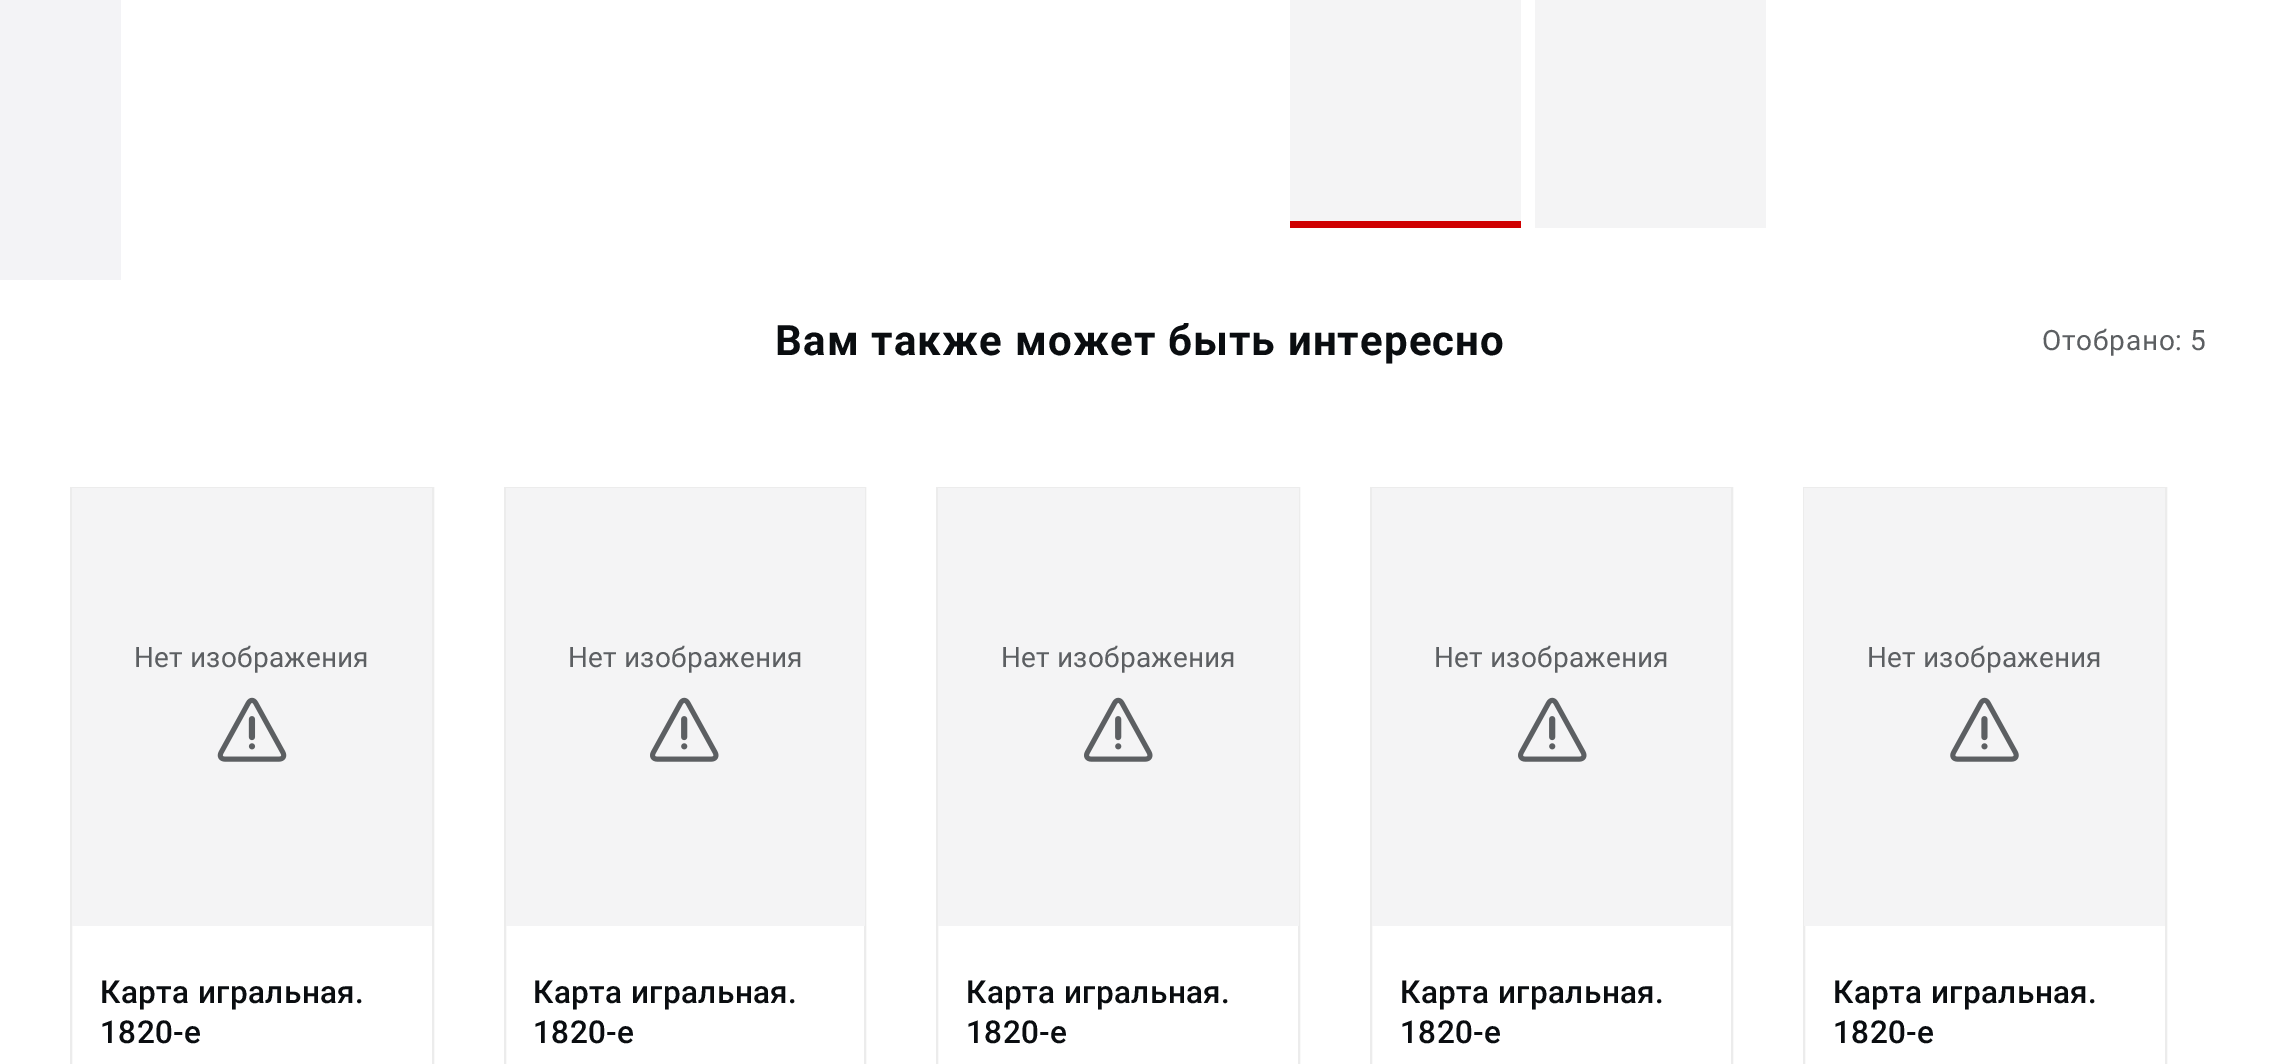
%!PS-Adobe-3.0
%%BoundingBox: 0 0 2279 1064
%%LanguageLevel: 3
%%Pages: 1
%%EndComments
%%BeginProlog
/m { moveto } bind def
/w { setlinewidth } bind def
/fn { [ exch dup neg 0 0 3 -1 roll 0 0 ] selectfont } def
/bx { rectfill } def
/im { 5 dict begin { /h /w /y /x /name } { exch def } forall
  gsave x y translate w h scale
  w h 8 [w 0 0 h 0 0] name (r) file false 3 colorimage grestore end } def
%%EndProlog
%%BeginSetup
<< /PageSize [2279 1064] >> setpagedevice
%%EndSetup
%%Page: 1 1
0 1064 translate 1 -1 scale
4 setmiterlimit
1 setgray
0 0 2279 1064 bx
0.953 0.953 0.965 setrgbcolor
0 0 121 280 bx
0.957 0.957 0.961 setrgbcolor
1290 0 231 221 bx
0.812 0 0 setrgbcolor
1290 221 231 7 bx
0.957 0.957 0.961 setrgbcolor
1535 0 231 228 bx
/Roboto-Bold 42 fn
0.039 0.051 0.063 setrgbcolor
775 355 m 1.15 0 (Вам также может быть интересно) ashow
/Roboto-Regular 28 fn
0.361 0.373 0.384 setrgbcolor
2042 350 m 0.75 0 (Отобрано: 5) ashow
0.925 setgray
2 w
71 488 362 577 rectstroke
0.957 0.957 0.961 setrgbcolor
72 488 360 438 bx
0.361 0.373 0.384 setrgbcolor
134 667 m 0.2 0 (Нет изображения) ashow
(image0.raw) 217 697 70 65 im
/Roboto-Medium 31.5 fn
0.039 0.051 0.063 setrgbcolor
100 1003 m 0.4 0 (Карта игральная.) ashow
100 1043 m 0.4 0 (1820-е) ashow
0.925 setgray
505 488 360 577 rectstroke
0.957 0.957 0.961 setrgbcolor
506 488 359 438 bx
/Roboto-Regular 28 fn
0.361 0.373 0.384 setrgbcolor
568 667 m 0.2 0 (Нет изображения) ashow
(image1.raw) 650 697 69 65 im
/Roboto-Medium 31.5 fn
0.039 0.051 0.063 setrgbcolor
533 1003 m 0.4 0 (Карта игральная.) ashow
533 1043 m 0.4 0 (1820-е) ashow
0.925 setgray
937 488 362 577 rectstroke
0.957 0.957 0.961 setrgbcolor
938 488 361 438 bx
/Roboto-Regular 28 fn
0.361 0.373 0.384 setrgbcolor
1001 667 m 0.2 0 (Нет изображения) ashow
(image1.raw) 1084 697 69 65 im
/Roboto-Medium 31.5 fn
0.039 0.051 0.063 setrgbcolor
966 1003 m 0.4 0 (Карта игральная.) ashow
966 1043 m 0.4 0 (1820-е) ashow
0.925 setgray
1371 488 361 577 rectstroke
0.957 0.957 0.961 setrgbcolor
1372 488 359 438 bx
/Roboto-Regular 28 fn
0.361 0.373 0.384 setrgbcolor
1434 667 m 0.2 0 (Нет изображения) ashow
(image1.raw) 1518 697 69 65 im
/Roboto-Medium 31.5 fn
0.039 0.051 0.063 setrgbcolor
1400 1003 m 0.4 0 (Карта игральная.) ashow
1400 1043 m 0.4 0 (1820-е) ashow
0.925 setgray
1804 488 362 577 rectstroke
0.957 0.957 0.961 setrgbcolor
1804 488 361 438 bx
/Roboto-Regular 28 fn
0.361 0.373 0.384 setrgbcolor
1867 667 m 0.2 0 (Нет изображения) ashow
(image2.raw) 1950 697 69 65 im
/Roboto-Medium 31.5 fn
0.039 0.051 0.063 setrgbcolor
1833 1003 m 0.4 0 (Карта игральная.) ashow
1833 1043 m 0.4 0 (1820-е) ashow
showpage
%%EOF
